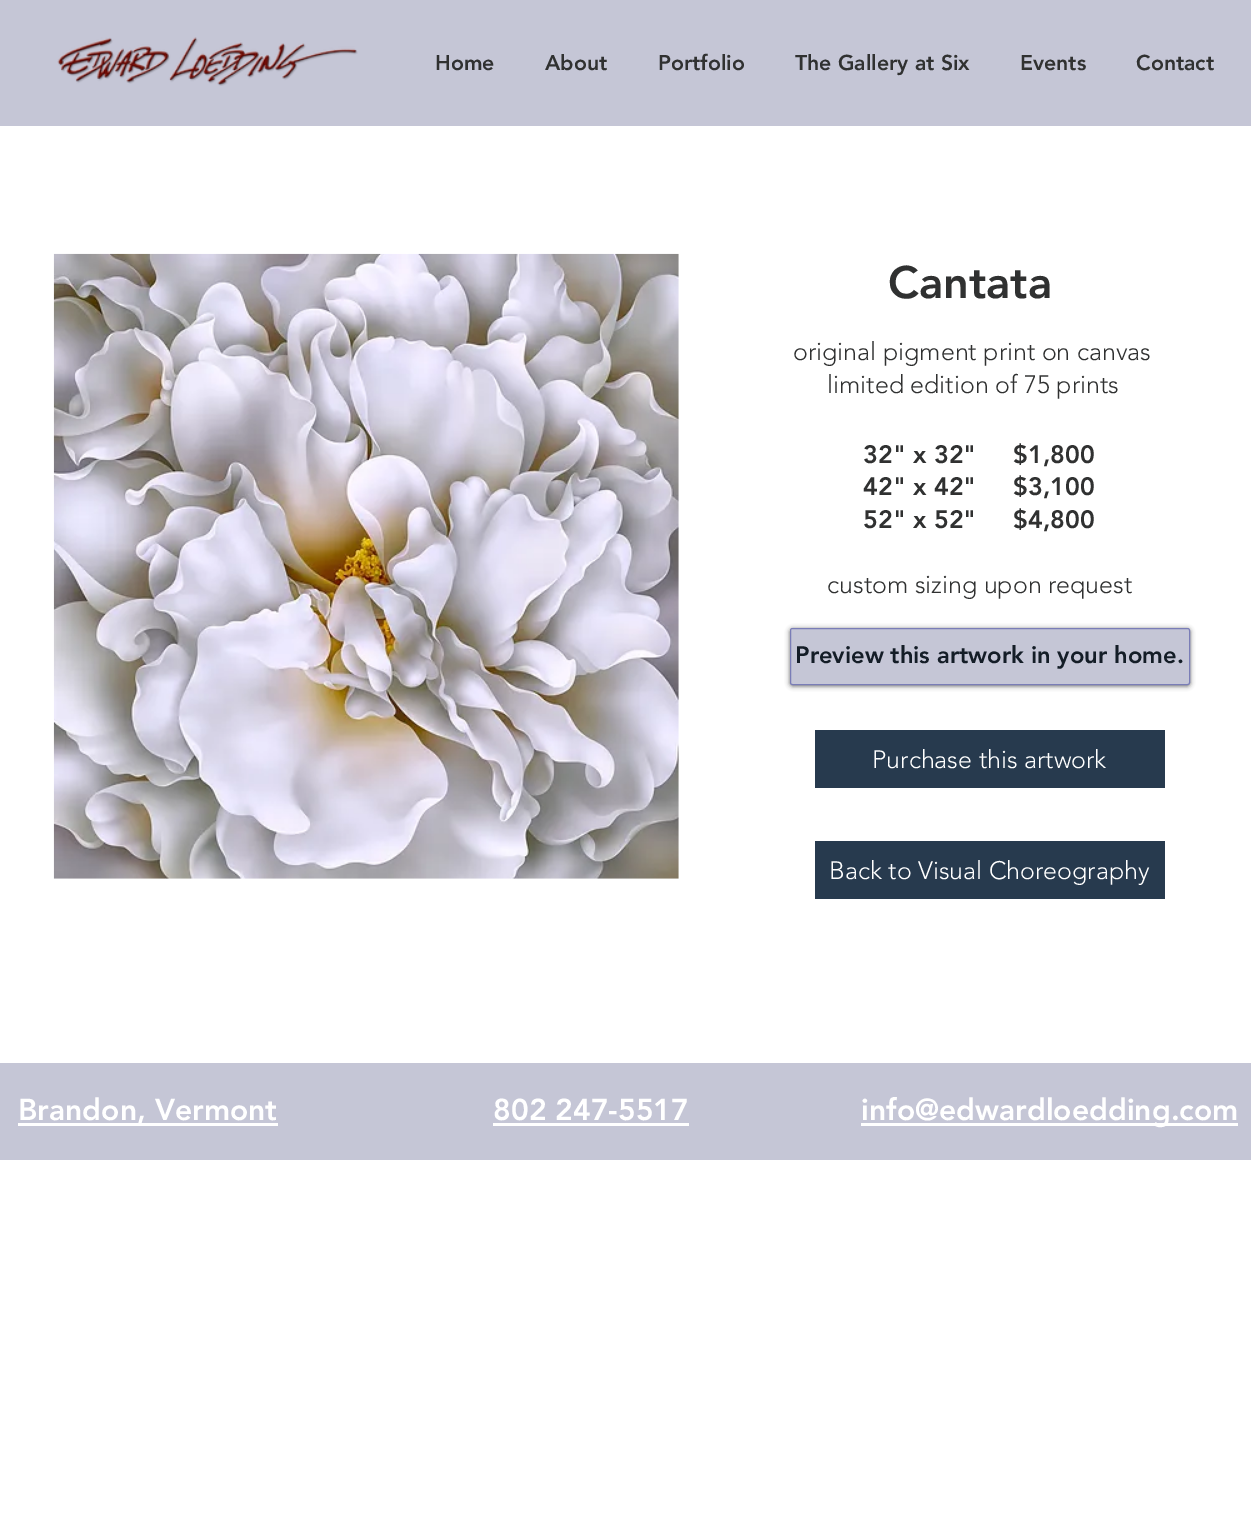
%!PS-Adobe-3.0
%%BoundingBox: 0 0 1251 1536
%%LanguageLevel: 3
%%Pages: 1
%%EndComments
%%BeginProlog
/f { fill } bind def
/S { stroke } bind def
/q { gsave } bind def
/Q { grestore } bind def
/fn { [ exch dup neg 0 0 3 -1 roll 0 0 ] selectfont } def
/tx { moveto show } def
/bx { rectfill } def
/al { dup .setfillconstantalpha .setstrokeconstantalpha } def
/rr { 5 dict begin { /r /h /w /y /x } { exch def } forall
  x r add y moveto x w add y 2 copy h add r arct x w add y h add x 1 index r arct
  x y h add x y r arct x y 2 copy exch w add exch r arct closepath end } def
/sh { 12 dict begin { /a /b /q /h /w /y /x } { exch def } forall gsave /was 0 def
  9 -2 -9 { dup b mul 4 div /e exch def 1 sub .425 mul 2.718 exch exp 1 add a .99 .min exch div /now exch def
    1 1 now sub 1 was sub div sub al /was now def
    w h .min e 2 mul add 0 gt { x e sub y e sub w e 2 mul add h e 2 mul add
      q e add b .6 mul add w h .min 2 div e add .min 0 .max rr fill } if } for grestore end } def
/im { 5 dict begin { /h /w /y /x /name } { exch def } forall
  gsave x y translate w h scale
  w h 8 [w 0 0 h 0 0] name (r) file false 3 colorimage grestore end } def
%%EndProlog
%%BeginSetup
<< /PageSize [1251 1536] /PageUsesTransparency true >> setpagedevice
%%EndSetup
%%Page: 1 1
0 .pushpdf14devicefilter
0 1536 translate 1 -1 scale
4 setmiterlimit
1 setgray
0 0 1251 1536 bx
0.773 0.776 0.839 setrgbcolor
0 0 1251 126 bx
(image0.raw) 57 37 301 49 im
/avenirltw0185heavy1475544-Black 21.25 fn
0.188 0.192 0.192 setrgbcolor
(Home) 435 70 tx
(About) 545 70 tx
(Portfolio) 658 70 tx
(The Gallery at Six) 795 70 tx
(Events) 1020 70 tx
(Contact) 1136 70 tx
(image1.raw) 53 253 626 626 im
/avenirltw0185heavy1475544-Black 45 fn
(Cantata) 888 298 tx
/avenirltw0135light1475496-Light 25 fn
(original pigment print on canvas) 793 360 tx
(limited edition of 75 prints) 827 393 tx
/avenirltw0185heavy1475544-Black 25 fn
(32" x 32"     $1,800) 863 463 tx
(42" x 42"     $3,100) 863 495 tx
(52" x 52"     $4,800) 863 528 tx
/avenirltw0135light1475496-Light 25 fn
(custom sizing upon request) 827 593 tx
0 setgray
790 629 400 57 2.5 2.5 0.6 sh
0.773 0.776 0.839 setrgbcolor
790.5 628.5 399 56 2 rr q f Q
0.478 0.49 0.718 setrgbcolor
S
/avenirltw0185heavy1475544-Black 23.75 fn
0.078 0.114 0.153 setrgbcolor
(Preview this artwork in your home.) 795 663 tx
0.153 0.227 0.306 setrgbcolor
815 730 350 58 bx
/avenirltw0135light1475496-Light 25 fn
1 setgray
(Purchase this artwork) 872 768 tx
0.153 0.227 0.306 setrgbcolor
815 841 350 58 bx
1 setgray
(Back to Visual Choreography) 829 879 tx
0.773 0.776 0.839 setrgbcolor
0 1063 1251 97 bx
1 setgray
18 1123 260 3 bx
/avenirltw0185heavy1475544-Black 30 fn
(Brandon, Vermont) 18 1120 tx
(802 247-5517) 493 1120 tx
493 1123 196 3 bx
861 1123 377 3 bx
(info@edwardloedding.com) 861 1120 tx
.poppdf14devicefilter showpage
%%EOF
